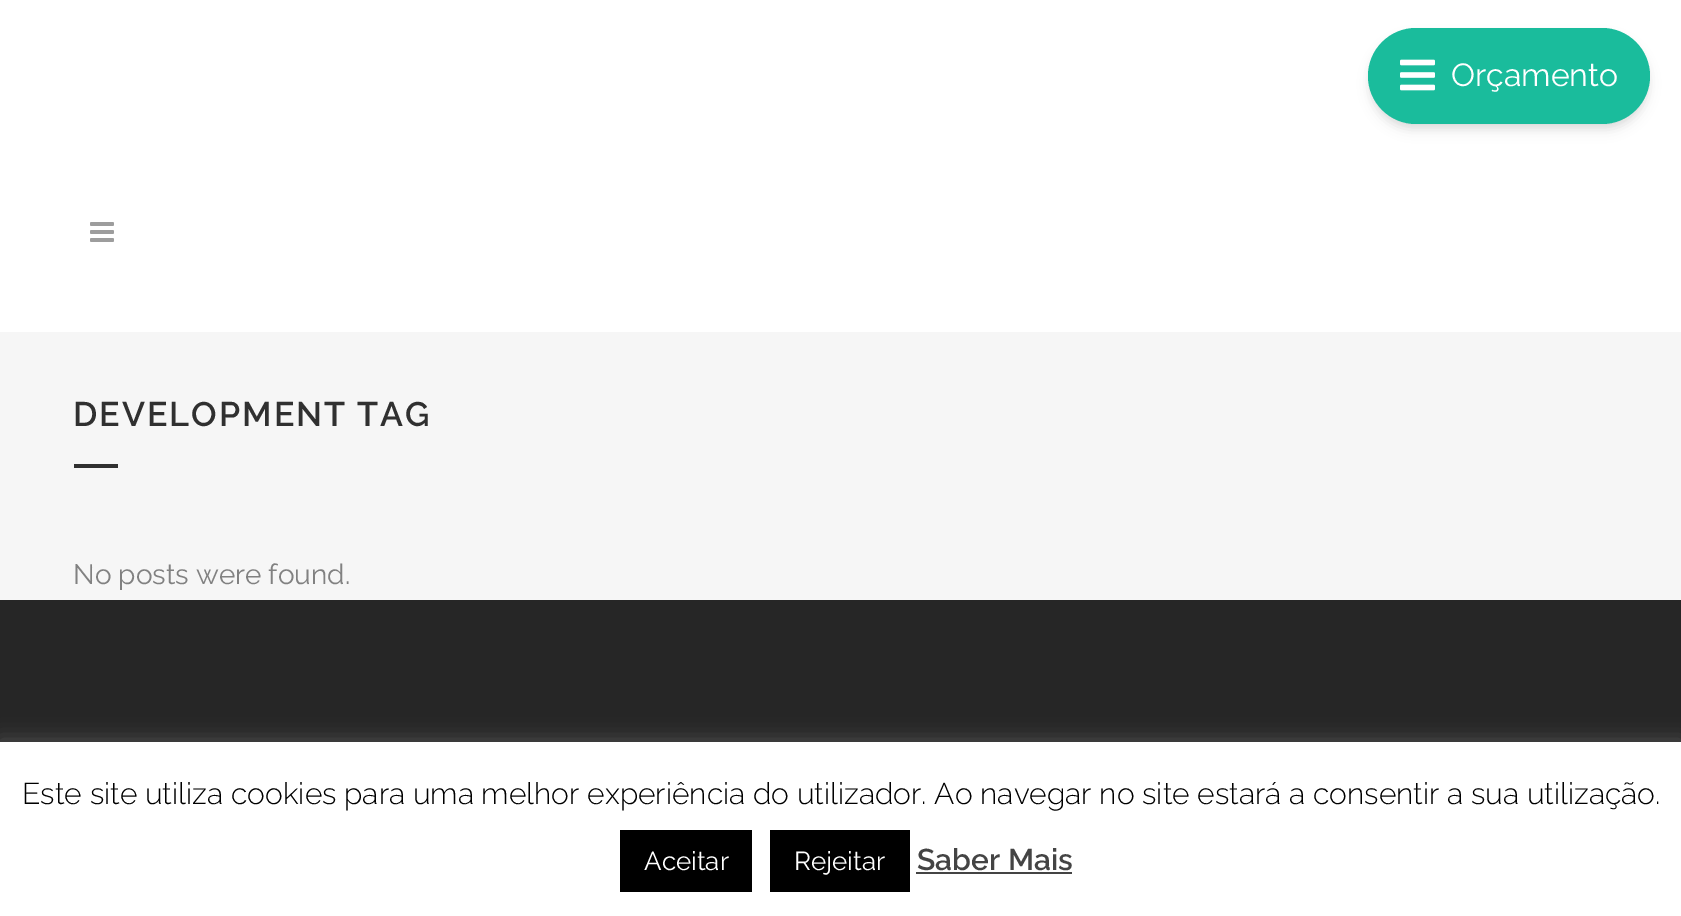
%!PS-Adobe-3.0
%%BoundingBox: 0 0 1681 916
%%LanguageLevel: 3
%%Pages: 1
%%EndComments
%%BeginProlog
/m { moveto } bind def
/f { fill } bind def
/fn { [ exch dup neg 0 0 3 -1 roll 0 0 ] selectfont } def
/tx { moveto show } def
/bx { rectfill } def
/al { dup .setfillconstantalpha .setstrokeconstantalpha } def
/rr { 5 dict begin { /r /h /w /y /x } { exch def } forall
  x r add y moveto x w add y 2 copy h add r arct x w add y h add x 1 index r arct
  x y h add x y r arct x y 2 copy exch w add exch r arct closepath end } def
/sh { 12 dict begin { /a /b /q /h /w /y /x } { exch def } forall gsave /was 0 def
  9 -2 -9 { dup b mul 4 div /e exch def 1 sub .425 mul 2.718 exch exp 1 add a .99 .min exch div /now exch def
    1 1 now sub 1 was sub div sub al /was now def
    w h .min e 2 mul add 0 gt { x e sub y e sub w e 2 mul add h e 2 mul add
      q e add b .6 mul add w h .min 2 div e add .min 0 .max rr fill } if } for grestore end } def
/im { 5 dict begin { /h /w /y /x /name } { exch def } forall
  gsave x y translate w h scale
  w h 8 [w 0 0 h 0 0] name (r) file false 3 colorimage grestore end } def
%%EndProlog
%%BeginSetup
<< /PageSize [1681 916] /PageUsesTransparency true >> setpagedevice
%%EndSetup
%%Page: 1 1
0 .pushpdf14devicefilter
0 916 translate 1 -1 scale
4 setmiterlimit
0.965 setgray
0 0 1681 916 bx
1 setgray
0 0 1681 332 bx
0 setgray
1370 34 278 92 46 4 0.06 sh
1370 38 278 92 46 6 0.1 sh
0.102 0.737 0.612 setrgbcolor
1368 28 282 96 48 rr f
(image0.raw) 1400 59 35 32 im
/Raleway-Regular 32 fn
1 setgray
(Orçamento) 1451 86 tx
(image1.raw) 90 222 24 20 im
/Raleway-SemiBold 34 fn
0.188 setgray
73 426 m 2 0 (DEVELOPMENT TAG) ashow
74 464 44 4 bx
/Raleway-Regular 28 fn
0.506 setgray
(No posts were found.) 73 584 tx
0.149 setgray
0 600 1681 142 bx
0.675 0.671 0.671 setrgbcolor
0 740 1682 174 0 10 0.3 sh
1 setgray
0 742 1681 174 bx
/Raleway-Light 30 fn
0 setgray
(Este site utiliza cookies para uma melhor experiência do utilizador. Ao navegar no site estará a consentir a sua utilização.) 22 804 tx
620 830 132 62 bx
/Raleway-Regular 26 fn
1 setgray
(Aceitar) 644 870 tx
0 setgray
770 830 140 62 bx
1 setgray
(Rejeitar) 794 870 tx
/Raleway-SemiBold 30 fn
0.267 setgray
(Saber Mais) 917 870 tx
916 872 156 2 bx
.poppdf14devicefilter showpage
%%EOF
